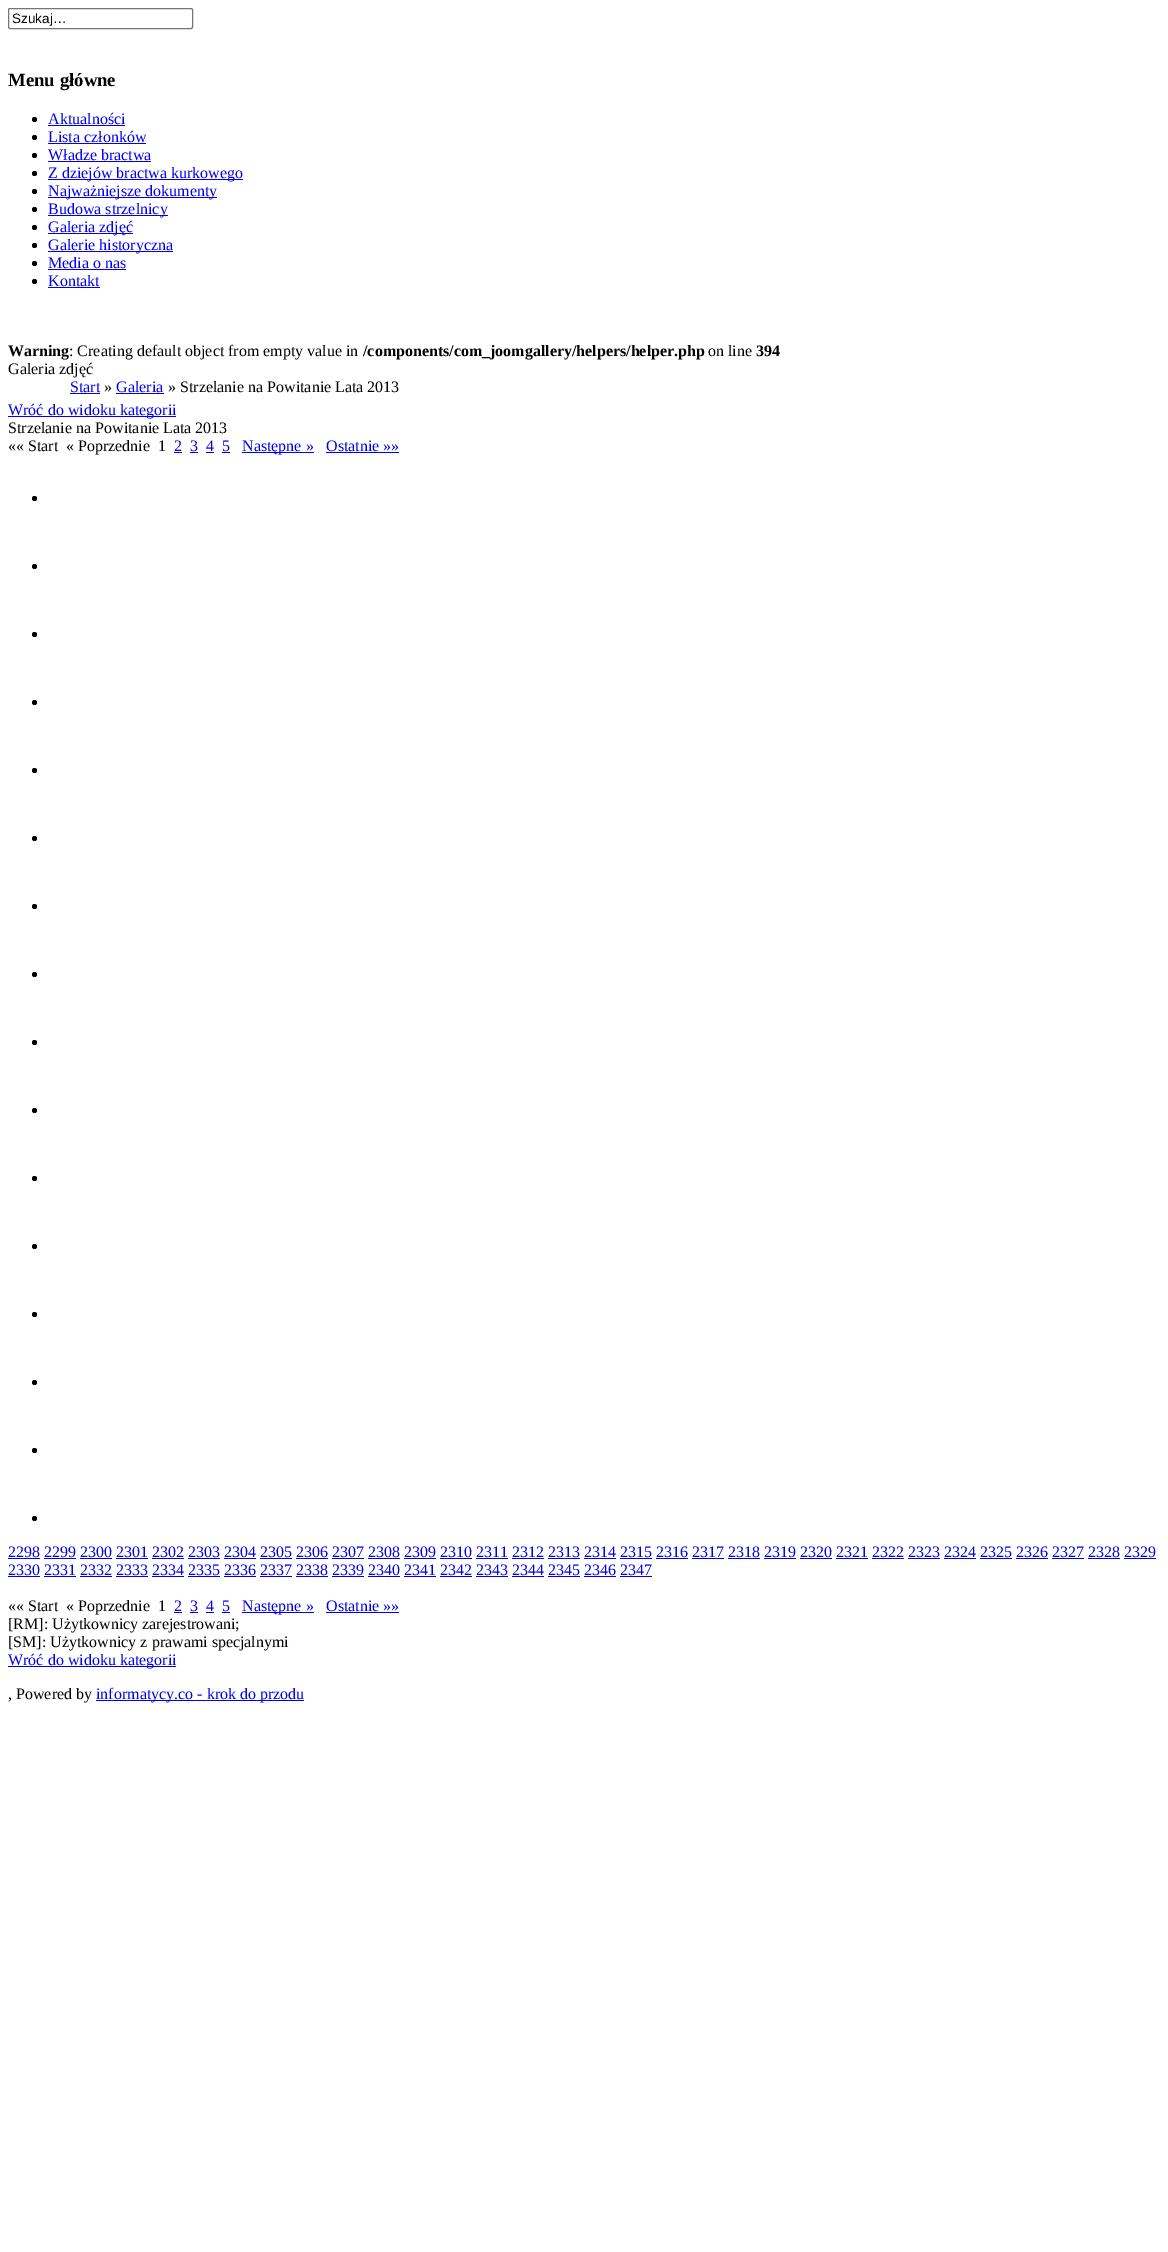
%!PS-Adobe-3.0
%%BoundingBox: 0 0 1168 2252
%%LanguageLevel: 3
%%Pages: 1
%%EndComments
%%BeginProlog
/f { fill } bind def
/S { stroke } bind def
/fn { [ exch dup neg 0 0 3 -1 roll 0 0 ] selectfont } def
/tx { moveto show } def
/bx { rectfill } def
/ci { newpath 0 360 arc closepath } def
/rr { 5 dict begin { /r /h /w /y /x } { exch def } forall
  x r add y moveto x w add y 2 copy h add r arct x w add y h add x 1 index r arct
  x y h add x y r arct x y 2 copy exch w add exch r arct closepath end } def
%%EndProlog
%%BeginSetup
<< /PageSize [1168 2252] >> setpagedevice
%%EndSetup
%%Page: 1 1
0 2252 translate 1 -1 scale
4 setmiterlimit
1 setgray
0 0 1168 2252 bx
0.463 setgray
8.5 8.5 184 20 1.5 rr S
/LiberationSans-Regular 13.5 fn
0 setgray
(Szukaj…) 12 23 tx
/LiberationSerif-Bold 18.75 fn
(Menu główne) 8 86 tx
34.5 119.5 2.5 ci f
/LiberationSerif-Regular 16 fn
0 0 0.933 setrgbcolor
(Aktualności) 48 124 tx
48 125 77 1 bx
0 setgray
34.5 137.5 2.5 ci f
0 0 0.933 setrgbcolor
(Lista członków) 48 142 tx
48 143 98 1 bx
0 setgray
34.5 155.5 2.5 ci f
0 0 0.933 setrgbcolor
(Władze bractwa) 48 160 tx
48 161 103 1 bx
0 setgray
34.5 173.5 2.5 ci f
0 0 0.933 setrgbcolor
48 179 195 1 bx
(Z dziejów bractwa kurkowego) 48 178 tx
0 setgray
34.5 191.5 2.5 ci f
0 0 0.933 setrgbcolor
48 197 169 1 bx
(Najważniejsze dokumenty) 48 196 tx
0 setgray
34.5 209.5 2.5 ci f
0 0 0.933 setrgbcolor
48 215 120 1 bx
(Budowa strzelnicy) 48 214 tx
0 setgray
34.5 227.5 2.5 ci f
0 0 0.933 setrgbcolor
48 233 85 1 bx
(Galeria zdjęć) 48 232 tx
0 setgray
34.5 245.5 2.5 ci f
0 0 0.933 setrgbcolor
48 251 125 1 bx
(Galerie historyczna) 48 250 tx
0 setgray
34.5 263.5 2.5 ci f
0 0 0.933 setrgbcolor
(Media o nas) 48 268 tx
48 269 78 1 bx
0 setgray
34.5 281.5 2.5 ci f
0 0 0.933 setrgbcolor
(Kontakt) 48 286 tx
48 287 52 1 bx
/LiberationSerif-Bold 16 fn
0 setgray
(Warning) 8 356 tx
/LiberationSerif-Regular 16 fn
(: Creating default object from empty value in) 69 356 tx
/LiberationSerif-Bold 16 fn
(/components/com_joomgallery/helpers/helper.php) 363 356 tx
/LiberationSerif-Regular 16 fn
(on line) 708 356 tx
/LiberationSerif-Bold 16 fn
(394) 756 356 tx
/LiberationSerif-Regular 16 fn
(Galeria zdjęć) 8 374 tx
0 0 0.933 setrgbcolor
(Start) 70 392 tx
70 393 30 1 bx
0 setgray
(») 104 392 tx
0 0 0.933 setrgbcolor
(Galeria) 116 392 tx
116 393 48 1 bx
0 setgray
(» Strzelanie na Powitanie Lata 2013) 168 392 tx
0 0 0.933 setrgbcolor
8 416 168 1 bx
(Wróć do widoku kategorii) 8 415 tx
0 setgray
(Strzelanie na Powitanie Lata 2013) 8 433 tx
(«« Start) 8 451 tx
(« Poprzednie) 66 451 tx
(1) 158 451 tx
0 0 0.933 setrgbcolor
(2) 174 451 tx
174 452 8 1 bx
(3) 190 451 tx
190 452 8 1 bx
(4) 206 451 tx
206 452 8 1 bx
(5) 222 451 tx
222 452 8 1 bx
242 452 72 1 bx
(Następne ») 242 451 tx
(Ostatnie »») 326 451 tx
326 452 73 1 bx
0 setgray
34.5 498.5 2.5 ci f
34.5 566.5 2.5 ci f
34.5 634.5 2.5 ci f
34.5 702.5 2.5 ci f
34.5 770.5 2.5 ci f
34.5 838.5 2.5 ci f
34.5 906.5 2.5 ci f
34.5 974.5 2.5 ci f
34.5 1042.5 2.5 ci f
34.5 1110.5 2.5 ci f
34.5 1178.5 2.5 ci f
34.5 1246.5 2.5 ci f
34.5 1314.5 2.5 ci f
34.5 1382.5 2.5 ci f
34.5 1450.5 2.5 ci f
34.5 1518.5 2.5 ci f
0 0 0.933 setrgbcolor
(2298 2299 2300 2301 2302 2303 2304 2305 2306 2307 2308 2309 2310 2311 2312 2313 2314 2315 2316 2317 2318 2319 2320 2321 2322 2323 2324 2325 2326 2327 2328 2329) 8 1557 tx
8 1558 32 1 bx
44 1558 32 1 bx
80 1558 32 1 bx
116 1558 32 1 bx
152 1558 32 1 bx
188 1558 32 1 bx
224 1558 32 1 bx
260 1558 32 1 bx
296 1558 32 1 bx
332 1558 32 1 bx
368 1558 32 1 bx
404 1558 32 1 bx
440 1558 32 1 bx
476 1558 32 1 bx
512 1558 32 1 bx
548 1558 32 1 bx
584 1558 32 1 bx
620 1558 32 1 bx
656 1558 32 1 bx
692 1558 32 1 bx
728 1558 32 1 bx
764 1558 32 1 bx
800 1558 32 1 bx
836 1558 32 1 bx
872 1558 32 1 bx
908 1558 32 1 bx
944 1558 32 1 bx
980 1558 32 1 bx
1016 1558 32 1 bx
1052 1558 32 1 bx
1088 1558 32 1 bx
1124 1558 32 1 bx
(2330 2331 2332 2333 2334 2335 2336 2337 2338 2339 2340 2341 2342 2343 2344 2345 2346 2347) 8 1575 tx
8 1576 32 1 bx
44 1576 32 1 bx
80 1576 32 1 bx
116 1576 32 1 bx
152 1576 32 1 bx
188 1576 32 1 bx
224 1576 32 1 bx
260 1576 32 1 bx
296 1576 32 1 bx
332 1576 32 1 bx
368 1576 32 1 bx
404 1576 32 1 bx
440 1576 32 1 bx
476 1576 32 1 bx
512 1576 32 1 bx
548 1576 32 1 bx
584 1576 32 1 bx
620 1576 32 1 bx
0 setgray
(«« Start) 8 1611 tx
(« Poprzednie) 66 1611 tx
(1) 158 1611 tx
0 0 0.933 setrgbcolor
(2) 174 1611 tx
174 1612 8 1 bx
(3) 190 1611 tx
190 1612 8 1 bx
(4) 206 1611 tx
206 1612 8 1 bx
(5) 222 1611 tx
222 1612 8 1 bx
242 1612 72 1 bx
(Następne ») 242 1611 tx
(Ostatnie »») 326 1611 tx
326 1612 73 1 bx
0 setgray
([RM]: Użytkownicy zarejestrowani;) 8 1629 tx
([SM]: Użytkownicy z prawami specjalnymi) 8 1647 tx
0 0 0.933 setrgbcolor
8 1666 168 1 bx
(Wróć do widoku kategorii) 8 1665 tx
0 setgray
(, Powered by) 8 1699 tx
0 0 0.933 setrgbcolor
96 1700 208 1 bx
(informatycy.co - krok do przodu) 96 1699 tx
showpage
%%EOF
